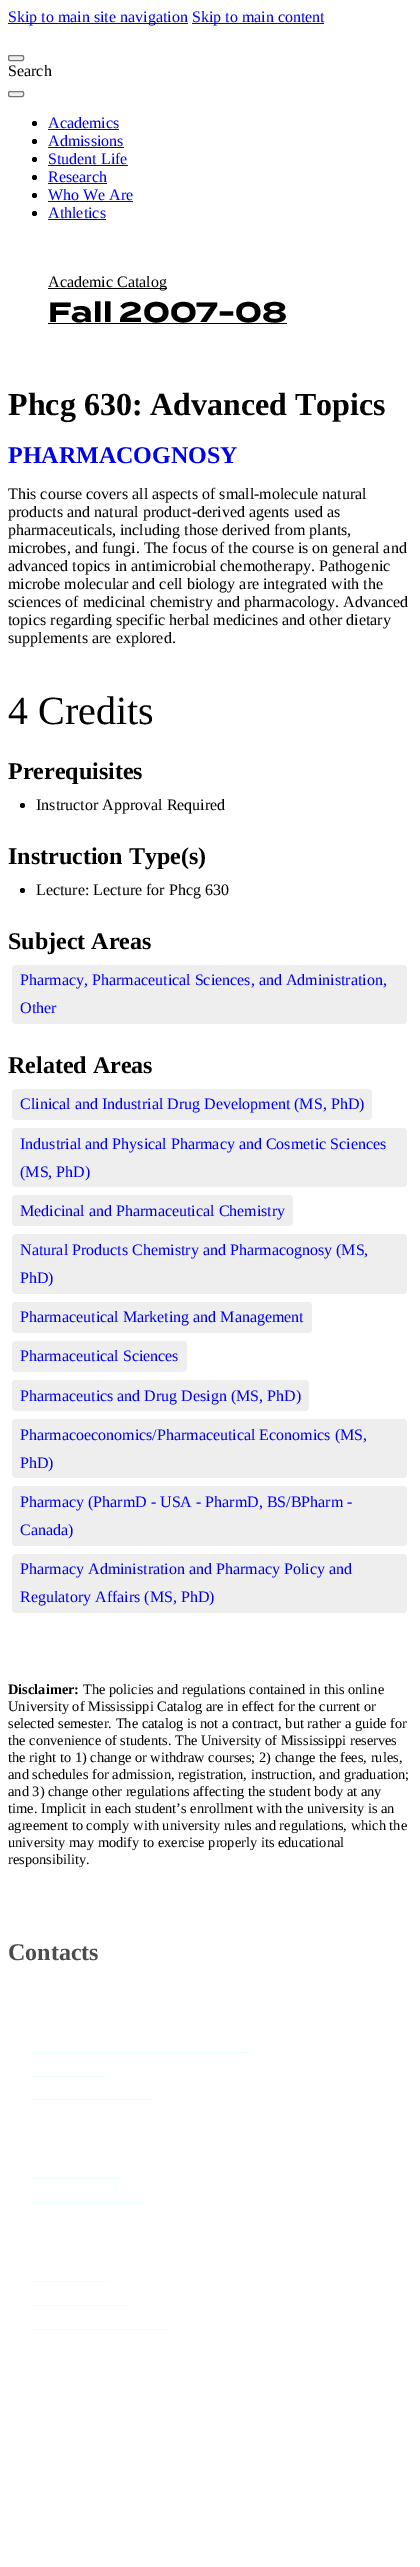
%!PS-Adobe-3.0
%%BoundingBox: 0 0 420 2567
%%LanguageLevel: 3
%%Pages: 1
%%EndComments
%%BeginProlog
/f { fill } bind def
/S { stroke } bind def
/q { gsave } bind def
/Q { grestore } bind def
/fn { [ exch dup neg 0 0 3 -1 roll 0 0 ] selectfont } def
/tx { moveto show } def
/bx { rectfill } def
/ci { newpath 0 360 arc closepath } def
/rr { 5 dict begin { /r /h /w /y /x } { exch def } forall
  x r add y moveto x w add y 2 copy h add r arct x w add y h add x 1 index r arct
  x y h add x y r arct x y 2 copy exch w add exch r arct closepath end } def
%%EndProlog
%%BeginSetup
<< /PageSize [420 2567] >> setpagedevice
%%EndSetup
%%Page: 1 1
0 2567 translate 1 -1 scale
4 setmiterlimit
1 setgray
0 0 420 2567 bx
0 0 0.933 setrgbcolor
8 23 180 1 bx
/LiberationSerif-Regular 16 fn
(Skip to main site navigation) 8 22 tx
192 23 132 1 bx
(Skip to main content) 192 22 tx
0.937 setgray
8.5 55.5 15 5 1.5 rr q f Q
0.463 setgray
S
0 setgray
(Search) 8 76 tx
0.937 setgray
8.5 91.5 15 5 1.5 rr q f Q
0.463 setgray
S
0 setgray
34.5 123.5 2.5 ci f
0 0 0.933 setrgbcolor
(Academics) 48 128 tx
48 129 71 1 bx
0 setgray
34.5 141.5 2.5 ci f
0 0 0.933 setrgbcolor
(Admissions) 48 146 tx
48 147 76 1 bx
0 setgray
34.5 159.5 2.5 ci f
0 0 0.933 setrgbcolor
(Student Life) 48 164 tx
48 165 80 1 bx
0 setgray
34.5 177.5 2.5 ci f
0 0 0.933 setrgbcolor
(Research) 48 182 tx
48 183 59 1 bx
0 setgray
34.5 195.5 2.5 ci f
0 0 0.933 setrgbcolor
(Who We Are) 48 200 tx
48 201 85 1 bx
0 setgray
34.5 213.5 2.5 ci f
0 0 0.933 setrgbcolor
(Athletics) 48 218 tx
48 219 58 1 bx
0 setgray
48 288 119 1 bx
(Academic Catalog) 48 287 tx
/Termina-Bold 28 fn
(Fall 2007-08) 48 322 tx
48 323 239 1 bx
/LiberationSerif-Bold 32 fn
(Phcg 630: Advanced Topics) 8 415 tx
/LiberationSerif-Bold 24 fn
0 0 0.933 setrgbcolor
(PHARMACOGNOSY) 8 463 tx
/LiberationSerif-Regular 16 fn
0 setgray
(This course covers all aspects of small-molecule natural) 8 499 tx
(products and natural product-derived agents used as) 8 517 tx
(pharmaceuticals, including those derived from plants,) 8 535 tx
(microbes, and fungi. The focus of the course is on general and) 8 553 tx
(advanced topics in antimicrobial chemotherapy. Pathogenic) 8 571 tx
(microbe molecular and cell biology are integrated with the) 8 589 tx
(sciences of medicinal chemistry and pharmacology. Advanced) 8 607 tx
(topics regarding specific herbal medicines and other dietary) 8 625 tx
(supplements are explored.) 8 643 tx
/LiberationSerif-Regular 40 fn
(4 Credits) 8 724 tx
/LiberationSerif-Bold 24 fn
(Prerequisites) 8 779 tx
22.5 805.5 2.5 ci f
/LiberationSerif-Regular 16 fn
(Instructor Approval Required) 36 810 tx
/LiberationSerif-Bold 24 fn
(Instruction Type\(s\)) 8 864 tx
22.5 890.5 2.5 ci f
/LiberationSerif-Regular 16 fn
(Lecture: Lecture for Phcg 630) 36 895 tx
/LiberationSerif-Bold 24 fn
(Subject Areas) 8 949 tx
0.933 setgray
12 965 395 59 4 rr f
/LiberationSerif-Regular 16 fn
0 0 0.933 setrgbcolor
(Pharmacy, Pharmaceutical Sciences, and Administration,) 20 985 tx
(Other) 20 1013 tx
/LiberationSerif-Bold 24 fn
0 setgray
(Related Areas) 8 1073 tx
0.933 setgray
12 1089 360 31 4 rr f
/LiberationSerif-Regular 16 fn
0 0 0.933 setrgbcolor
(Clinical and Industrial Drug Development \(MS, PhD\)) 20 1109 tx
0.933 setgray
12 1128 395 59 4 rr f
0 0 0.933 setrgbcolor
(Industrial and Physical Pharmacy and Cosmetic Sciences) 20 1149 tx
(\(MS, PhD\)) 20 1177 tx
0.933 setgray
12 1195 281 31 4 rr f
0 0 0.933 setrgbcolor
(Medicinal and Pharmaceutical Chemistry) 20 1216 tx
0.933 setgray
12 1234 395 60 4 rr f
0 0 0.933 setrgbcolor
(Natural Products Chemistry and Pharmacognosy \(MS,) 20 1255 tx
(PhD\)) 20 1283 tx
0.933 setgray
12 1302 300 31 4 rr f
0 0 0.933 setrgbcolor
(Pharmaceutical Marketing and Management) 20 1322 tx
0.933 setgray
12 1341 175 31 4 rr f
0 0 0.933 setrgbcolor
(Pharmaceutical Sciences) 20 1361 tx
0.933 setgray
12 1380 297 31 4 rr f
0 0 0.933 setrgbcolor
(Pharmaceutics and Drug Design \(MS, PhD\)) 20 1401 tx
0.933 setgray
12 1419 395 59 4 rr f
0 0 0.933 setrgbcolor
(Pharmacoeconomics/Pharmaceutical Economics \(MS,) 20 1440 tx
(PhD\)) 20 1468 tx
0.933 setgray
12 1486 395 60 4 rr f
0 0 0.933 setrgbcolor
(Pharmacy \(PharmD - USA - PharmD, BS/BPharm -) 20 1507 tx
(Canada\)) 20 1535 tx
0.933 setgray
12 1554 395 59 4 rr f
0 0 0.933 setrgbcolor
(Pharmacy Administration and Pharmacy Policy and) 20 1574 tx
(Regulatory Affairs \(MS, PhD\)) 20 1602 tx
/LiberationSerif-Bold 14.4 fn
0 setgray
(Disclaimer:) 8 1694 tx
/LiberationSerif-Regular 14.4 fn
(The policies and regulations contained in this online) 83 1694 tx
(University of Mississippi Catalog are in effect for the current or) 8 1711 tx
(selected semester. The catalog is not a contract, but rather a guide for) 8 1728 tx
(the convenience of students. The University of Mississippi reserves) 8 1745 tx
(the right to 1\) change or withdraw courses; 2\) change the fees, rules,) 8 1762 tx
(and schedules for admission, registration, instruction, and graduation;) 8 1779 tx
(and 3\) change other regulations affecting the student body at any) 8 1796 tx
(time. Implicit in each student’s enrollment with the university is an) 8 1813 tx
(agreement to comply with university rules and regulations, which the) 8 1830 tx
(university may modify to exercise properly its educational) 8 1847 tx
(responsibility.) 8 1864 tx
/LiberationSerif-Bold 24 fn
0.298 setgray
(Contacts) 8 1960 tx
0.922 1 0.988 setrgbcolor
32 2052 217 1 bx
32 2076 77 1 bx
32 2099 122 1 bx
32 2178 88 1 bx
32 2202 109 1 bx
32 2281 77 1 bx
32 2305 99 1 bx
32 2329 138 1 bx
showpage
%%EOF
